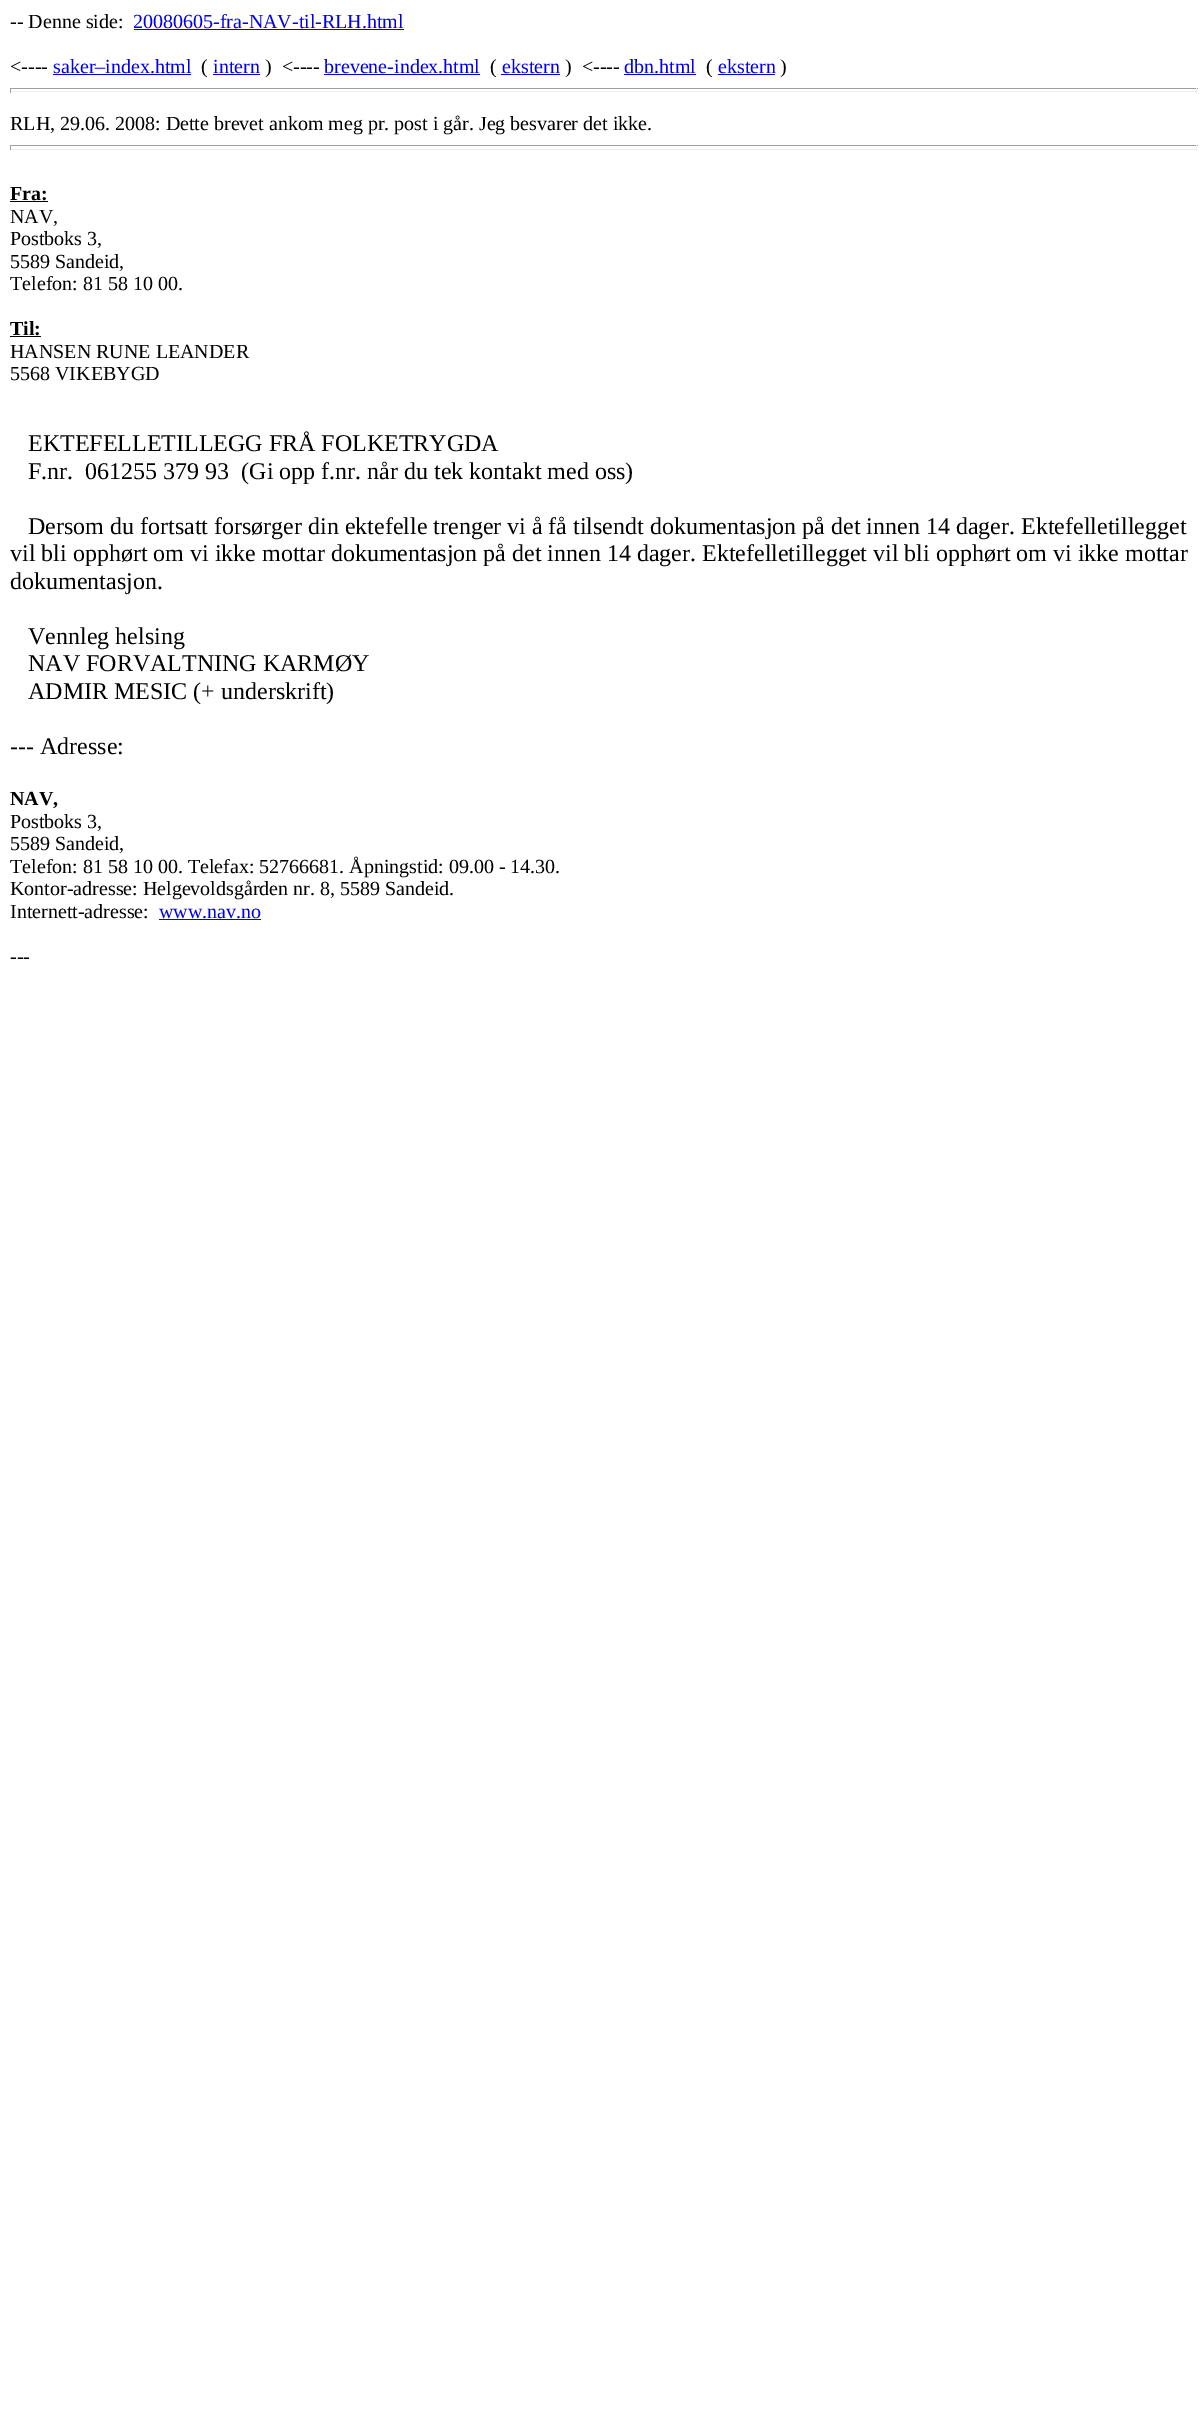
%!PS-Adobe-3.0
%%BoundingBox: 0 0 1204 2418
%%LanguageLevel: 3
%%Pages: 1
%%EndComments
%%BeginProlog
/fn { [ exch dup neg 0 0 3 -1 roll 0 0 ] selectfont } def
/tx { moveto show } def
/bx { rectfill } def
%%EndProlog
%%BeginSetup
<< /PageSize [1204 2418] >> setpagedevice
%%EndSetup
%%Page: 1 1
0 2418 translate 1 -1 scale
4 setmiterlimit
1 setgray
0 0 1204 2418 bx
/LiberationSerif-Regular 20 fn
0 setgray
(-- Denne side:) 10 28 tx
0 0 0.933 setrgbcolor
(20080605-fra-NAV-til-RLH.html) 133 28 tx
134 29 270 1 bx
0 setgray
(<----) 10 73 tx
0 0 0.933 setrgbcolor
(saker–index.html) 53 73 tx
53 74 138 1 bx
0 setgray
(\() 201 73 tx
0 0 0.933 setrgbcolor
(intern) 213 73 tx
213 74 47 1 bx
0 setgray
(\)  <----) 265 73 tx
0 0 0.933 setrgbcolor
(brevene-index.html) 324 73 tx
324 74 156 1 bx
0 setgray
(\() 490 73 tx
0 0 0.933 setrgbcolor
501 74 59 1 bx
(ekstern) 502 73 tx
0 setgray
(\)  <----) 565 73 tx
0 0 0.933 setrgbcolor
(dbn.html) 624 73 tx
624 74 72 1 bx
0 setgray
(\() 706 73 tx
0 0 0.933 setrgbcolor
(ekstern) 718 73 tx
718 74 57 1 bx
0 setgray
(\)) 780 73 tx
0.624 setgray
10 88 1188 1 bx
0.933 setgray
1196 88 1 5 bx
10 91 1188 1 bx
0.624 setgray
10 88 1 5 bx
0 setgray
(RLH, 29.06. 2008: Dette brevet ankom meg pr. post i går. Jeg besvarer det ikke.) 10 130 tx
0.624 setgray
10 145 1188 1 bx
0.933 setgray
1196 145 1 5 bx
10 149 1188 1 bx
0.624 setgray
10 145 1 5 bx
/LiberationSerif-Bold 20 fn
0 setgray
(Fra:) 10 200 tx
10 201 38 1 bx
/LiberationSerif-Regular 20 fn
(NAV,) 10 223 tx
(Postboks 3,) 10 245 tx
(5589 Sandeid,) 10 268 tx
(Telefon: 81 58 10 00.) 10 290 tx
/LiberationSerif-Bold 20 fn
(Til:) 10 335 tx
10 336 31 1 bx
/LiberationSerif-Regular 20 fn
(HANSEN RUNE LEANDER) 10 358 tx
(5568 VIKEBYGD) 10 380 tx
/LiberationSerif-Regular 24 fn
(EKTEFELLETILLEGG FRÅ FOLKETRYGDA) 28 451 tx
(F.nr.  061255 379 93  \(Gi opp f.nr. når du tek kontakt med oss\)) 28 479 tx
(Dersom du fortsatt forsørger din ektefelle trenger vi å få tilsendt dokumentasjon på det innen 14 dager. Ektefelletillegget) 28 534 tx
(vil bli opphørt om vi ikke mottar dokumentasjon på det innen 14 dager. Ektefelletillegget vil bli opphørt om vi ikke mottar) 10 561 tx
(dokumentasjon.) 10 589 tx
(Vennleg helsing) 28 644 tx
(NAV FORVALTNING KARMØY) 28 671 tx
(ADMIR MESIC \(+ underskrift\)) 28 699 tx
(--- Adresse:) 10 754 tx
/LiberationSerif-Bold 20 fn
(NAV,) 10 805 tx
/LiberationSerif-Regular 20 fn
(Postboks 3,) 10 828 tx
(5589 Sandeid,) 10 850 tx
(Telefon: 81 58 10 00. Telefax: 52766681. Åpningstid: 09.00 - 14.30.) 10 873 tx
(Kontor-adresse: Helgevoldsgården nr. 8, 5589 Sandeid.) 10 895 tx
(Internett-adresse:) 10 918 tx
0 0 0.933 setrgbcolor
(www.nav.no) 159 918 tx
159 919 102 1 bx
0 setgray
(---) 10 963 tx
showpage
%%EOF
